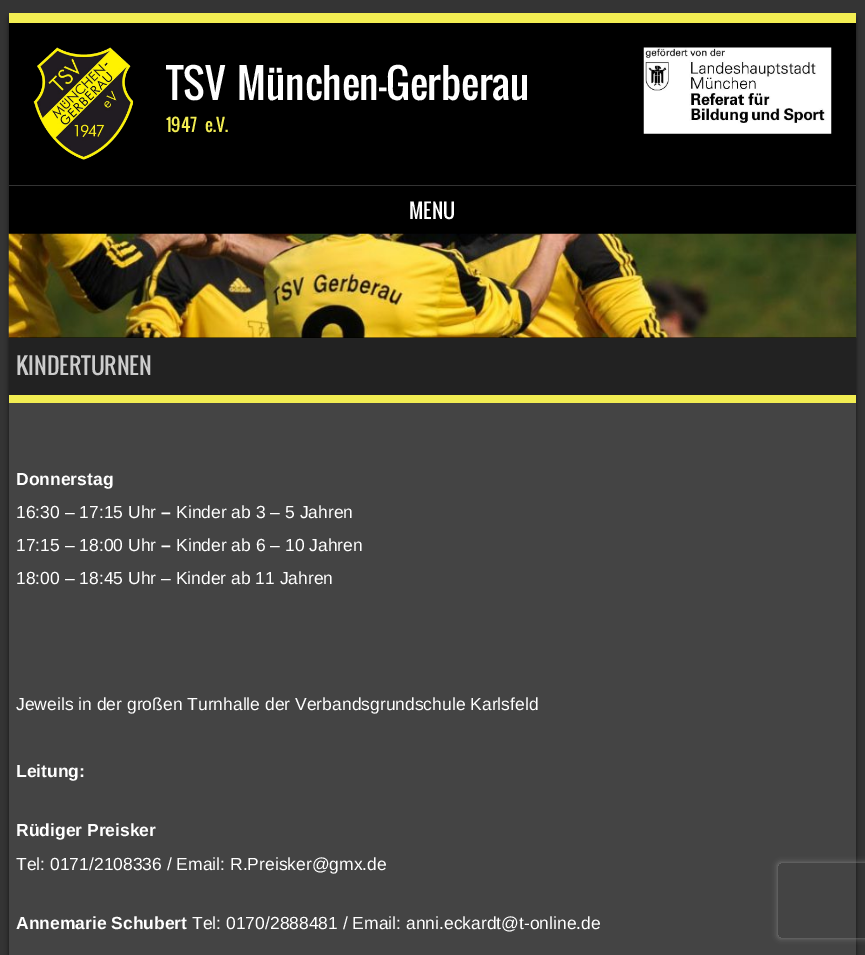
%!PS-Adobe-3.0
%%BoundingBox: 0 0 865 955
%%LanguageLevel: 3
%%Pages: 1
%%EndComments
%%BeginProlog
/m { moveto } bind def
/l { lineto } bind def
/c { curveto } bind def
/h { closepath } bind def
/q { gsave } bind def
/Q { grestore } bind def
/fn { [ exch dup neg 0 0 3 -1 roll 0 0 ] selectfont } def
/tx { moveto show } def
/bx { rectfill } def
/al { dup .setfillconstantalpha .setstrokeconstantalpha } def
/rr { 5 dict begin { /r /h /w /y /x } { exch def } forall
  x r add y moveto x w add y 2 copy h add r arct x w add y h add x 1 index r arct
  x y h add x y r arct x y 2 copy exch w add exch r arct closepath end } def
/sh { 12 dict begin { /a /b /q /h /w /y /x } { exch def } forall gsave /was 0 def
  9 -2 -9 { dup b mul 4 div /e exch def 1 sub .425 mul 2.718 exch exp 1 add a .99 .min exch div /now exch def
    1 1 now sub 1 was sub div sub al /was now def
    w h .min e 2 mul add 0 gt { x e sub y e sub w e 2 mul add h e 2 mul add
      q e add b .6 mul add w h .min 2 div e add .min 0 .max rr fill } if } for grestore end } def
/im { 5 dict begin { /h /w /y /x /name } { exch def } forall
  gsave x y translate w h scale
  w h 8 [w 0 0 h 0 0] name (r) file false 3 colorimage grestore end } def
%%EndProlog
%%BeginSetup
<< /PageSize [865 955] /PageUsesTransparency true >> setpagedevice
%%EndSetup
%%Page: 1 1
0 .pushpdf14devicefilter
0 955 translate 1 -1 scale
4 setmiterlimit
0.204 setgray
0 0 865 955 bx
0 setgray
9 18 847 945 0 2.5 0.6 sh
9 23 847 315 bx
0.949 0.929 0.322 setrgbcolor
9 13 847 10 bx
(image0.raw) 33 47 101 113 im
/Oswald-Regular 40 fn
1 setgray
166 100 m 5 0 32 (TSV München-Gerberau) widthshow
/Oswald-Regular 17.5 fn
0.949 0.929 0.322 setrgbcolor
166 132 m 5 0 32 (1947 e.V.) widthshow
(image1.raw) 643 47 189 87 im
0.2 setgray
9 185 847 1 bx
/Oswald-Regular 20 fn
1 setgray
(MENU) 409 219 tx
(image2.raw) 8 233 849 105 im
0.267 setgray
9 403 847 552 bx
0.133 setgray
10 338 845 57 bx
0.949 0.929 0.322 setrgbcolor
9 395 847 8 bx
/Oswald-Regular 22.5 fn
0.8 setgray
(KINDERTURNEN) 16 375 tx
/LiberationSans-Bold 17.5 fn
1 setgray
(Donnerstag) 16 485 tx
/LiberationSans-Regular 17.5 fn
(16:30 – 17:15 Uhr) 16 518 tx
/LiberationSans-Bold 17.5 fn
(–) 161 518 tx
/LiberationSans-Regular 17.5 fn
(Kinder ab 3 – 5 Jahren) 176 518 tx
(17:15 – 18:00 Uhr) 16 551 tx
/LiberationSans-Bold 17.5 fn
(–) 161 551 tx
/LiberationSans-Regular 17.5 fn
(Kinder ab 6 – 10 Jahren) 176 551 tx
(18:00 – 18:45 Uhr – Kinder ab 11 Jahren) 16 584 tx
(Jeweils in der großen Turnhalle der Verbandsgrundschule Karlsfeld) 16 710 tx
/LiberationSans-Bold 17.5 fn
(Leitung:) 16 777 tx
(Rüdiger Preisker) 16 836 tx
/LiberationSans-Regular 17.5 fn
(Tel: 0171/2108336 / Email: R.Preisker@gmx.de) 16 870 tx
/LiberationSans-Bold 17.5 fn
(Annemarie Schubert) 16 929 tx
/LiberationSans-Regular 17.5 fn
(Tel: 0170/2888481 / Email: anni.eckardt@t-online.de) 192 929 tx
q
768 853 m 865 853 l 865 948 l 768 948 l h 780.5 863 m 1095.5 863 l 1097 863 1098 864 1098 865.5 c 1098 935.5 l 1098 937 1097 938 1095.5 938 c 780.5 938 l 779 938 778 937 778 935.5 c 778 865.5 l 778 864 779 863 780.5 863 c h eoclip newpath
0.502 setgray
778 863 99 75 2.5 3 1 sh
Q
.poppdf14devicefilter showpage
%%EOF
